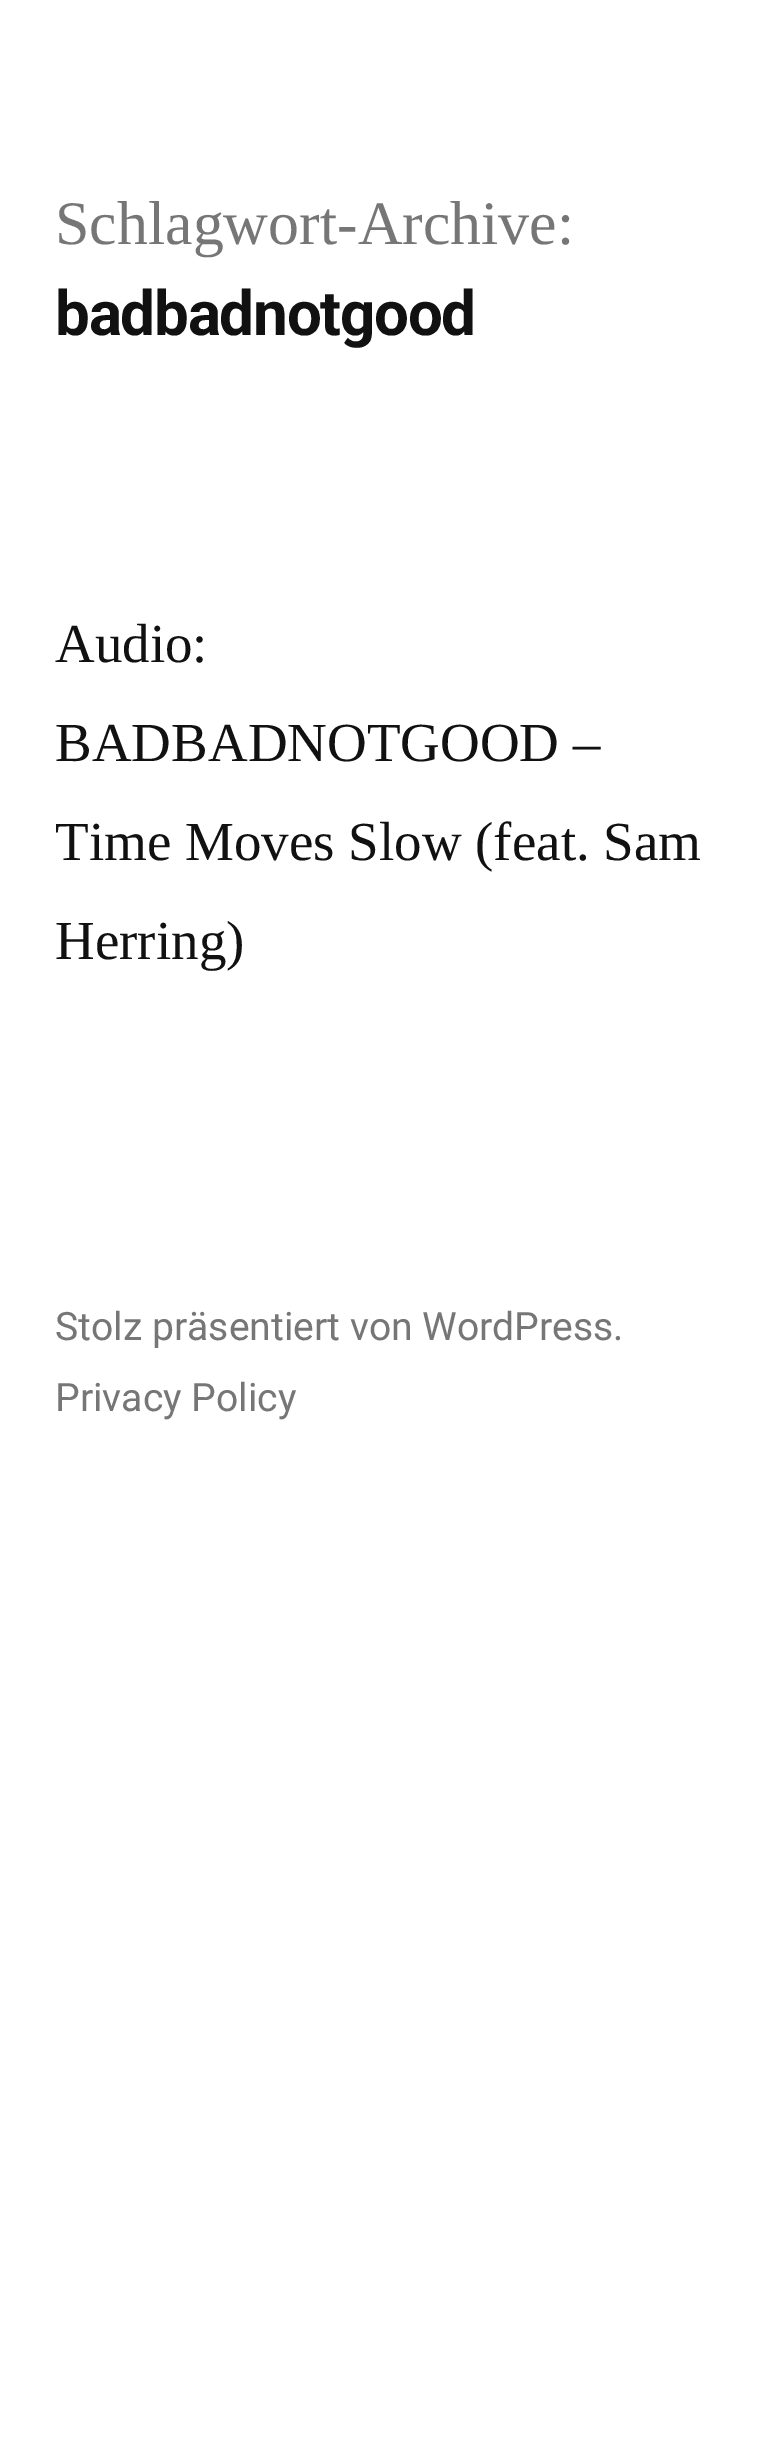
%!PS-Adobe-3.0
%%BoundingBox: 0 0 775 2461
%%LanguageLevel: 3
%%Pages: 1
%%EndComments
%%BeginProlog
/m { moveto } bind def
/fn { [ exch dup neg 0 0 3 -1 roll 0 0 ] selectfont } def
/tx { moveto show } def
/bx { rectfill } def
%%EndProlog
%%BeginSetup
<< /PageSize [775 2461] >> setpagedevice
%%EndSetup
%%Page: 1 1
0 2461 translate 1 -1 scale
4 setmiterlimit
1 setgray
0 0 775 2461 bx
/LiberationSerif-Regular 61.9 fn
0.463 setgray
(Schlagwort-Archive:) 55 244 tx
/Roboto-Bold 61.9 fn
0.067 setgray
55 335 m -1.25 0 (badbadnotgood) ashow
/LiberationSerif-Regular 55 fn
(Audio:) 55 662 tx
(BADBADNOTGOOD –) 55 761 tx
(Time Moves Slow \(feat. Sam) 55 860 tx
(Herring\)) 55 959 tx
/Roboto-Regular 39.1 fn
0.463 setgray
(Stolz präsentiert von WordPress.) 55 1340 tx
(Privacy Policy) 55 1411 tx
showpage
%%EOF
